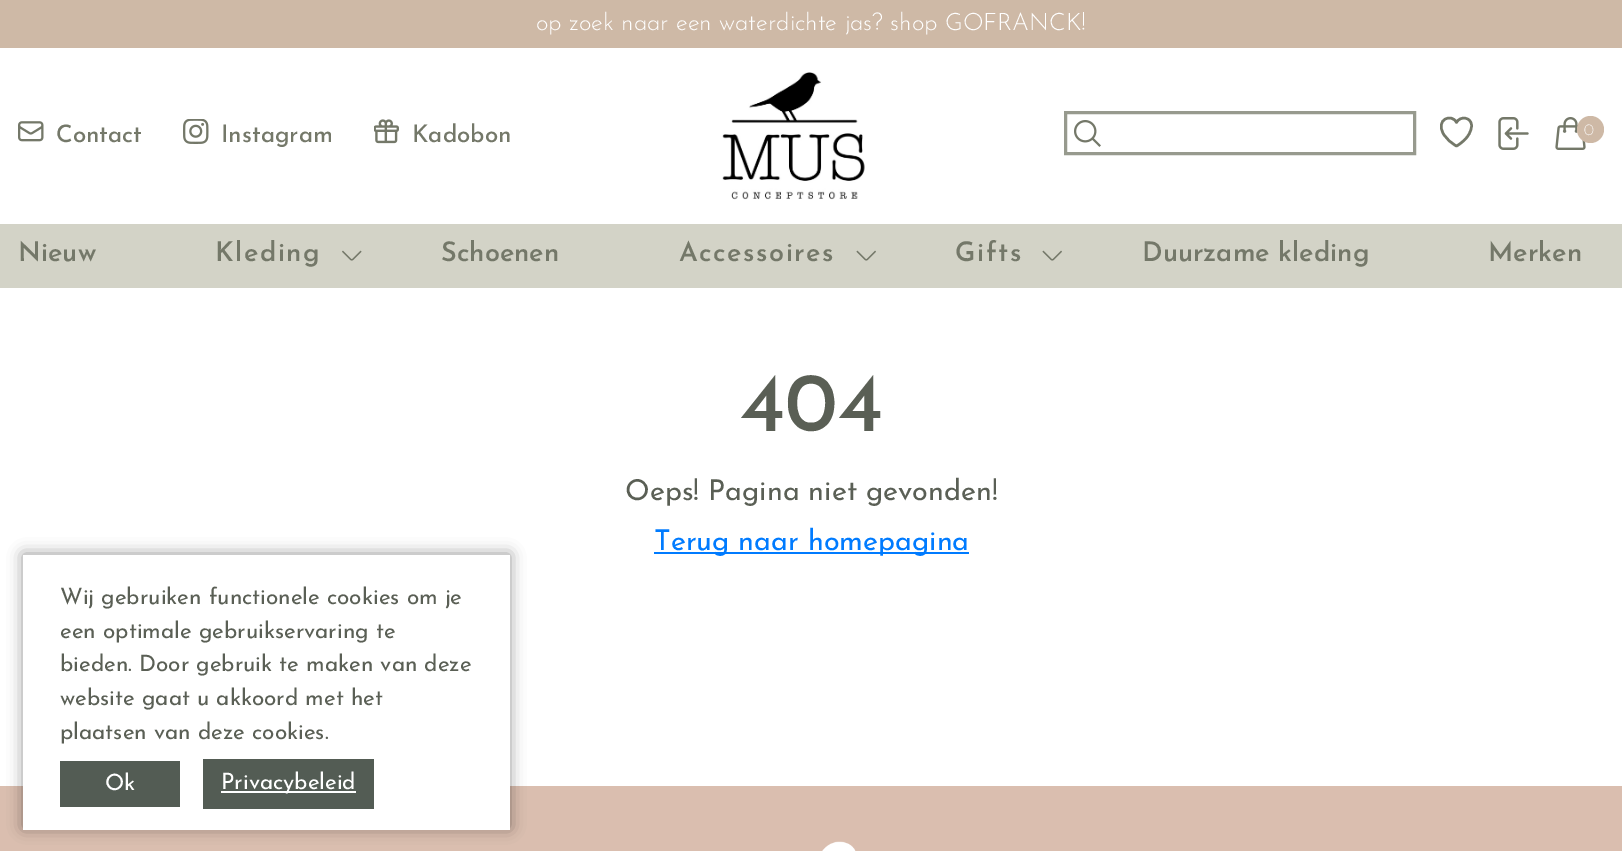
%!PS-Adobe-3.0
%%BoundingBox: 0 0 1622 851
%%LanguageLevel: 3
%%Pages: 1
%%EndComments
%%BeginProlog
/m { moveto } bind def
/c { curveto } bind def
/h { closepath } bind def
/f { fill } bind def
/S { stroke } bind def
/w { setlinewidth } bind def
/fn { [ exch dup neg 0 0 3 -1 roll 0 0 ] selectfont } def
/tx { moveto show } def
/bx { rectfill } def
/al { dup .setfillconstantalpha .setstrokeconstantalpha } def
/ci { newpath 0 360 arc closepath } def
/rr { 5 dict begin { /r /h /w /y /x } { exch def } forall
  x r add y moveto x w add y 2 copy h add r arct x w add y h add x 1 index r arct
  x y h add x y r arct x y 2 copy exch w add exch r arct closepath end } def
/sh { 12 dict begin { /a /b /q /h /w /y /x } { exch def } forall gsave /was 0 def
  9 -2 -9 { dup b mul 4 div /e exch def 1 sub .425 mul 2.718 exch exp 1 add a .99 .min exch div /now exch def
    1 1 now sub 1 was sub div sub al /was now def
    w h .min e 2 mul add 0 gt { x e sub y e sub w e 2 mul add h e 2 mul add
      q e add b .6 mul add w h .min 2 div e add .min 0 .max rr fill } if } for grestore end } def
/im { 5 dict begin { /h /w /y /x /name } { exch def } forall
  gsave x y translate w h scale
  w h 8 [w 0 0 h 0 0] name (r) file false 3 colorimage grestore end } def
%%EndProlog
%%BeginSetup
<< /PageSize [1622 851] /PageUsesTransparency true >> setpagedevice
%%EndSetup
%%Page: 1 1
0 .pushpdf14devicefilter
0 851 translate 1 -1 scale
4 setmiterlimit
1 setgray
0 0 1622 851 bx
0.808 0.725 0.651 setrgbcolor
0 0 1622 48 bx
/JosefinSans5-Thin 24 fn
1 setgray
(op zoek naar een waterdichte jas? shop GOFRANCK!) 536 30 tx
(image0.raw) 18 121 26 21 im
/JosefinSans-Thin 24 fn
0.455 0.471 0.412 setrgbcolor
(Contact) 56 142 tx
(image1.raw) 183 119 26 25 im
(Instagram) 221 142 tx
(image2.raw) 374 119 25 25 im
(Kadobon) 412 142 tx
(image3.raw) 722 72 143 128 im
0.592 0.604 0.557 setrgbcolor
3 w
1065.5 112.5 349 41 rectstroke
(image4.raw) 1074 120 27 27 im
0.455 0.471 0.412 setrgbcolor
2.5 w
1 setlinecap
1 setlinejoin
1471.5 125.5 m 1471.5 117 1460 115.5 1456.5 122.5 c 1452 113 1435 119 1443.5 134 c 1446.5 139 1451.5 143.5 1456.5 146 c 1456.5 146 1471.5 138 1471.5 125.5 c h S
(image5.raw) 1498 117 31 33 im
(image6.raw) 1555 117 31 33 im
0.808 0.725 0.651 setrgbcolor
1590.5 129.5 13.5 ci f
/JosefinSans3-Thin 16 fn
1 setgray
1584 135 m 1.5 0 (0) ashow
0.827 0.827 0.78 setrgbcolor
0 224 1622 64 bx
/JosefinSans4-Thin 27 fn
0.455 0.471 0.412 setrgbcolor
(Nieuw) 18 261 tx
215 261 m 1.5 0 (Kleding) ashow
(image7.raw) 342 250 20 11 im
(Schoenen) 441 261 tx
679 261 m 1.5 0 (Accessoires) ashow
(image8.raw) 856 250 20 11 im
955 261 m 1.5 0 (Gifts) ashow
(image8.raw) 1042 250 20 11 im
(Duurzame kleding) 1142 261 tx
(Merken) 1488 261 tx
/JosefinSans-Thin 84 fn
0.353 0.373 0.333 setrgbcolor
(404) 740 431 tx
/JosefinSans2-Thin 28.75 fn
(Oeps! Pagina niet gevonden!) 625 500 tx
0 0.482 1 setrgbcolor
654 552 315 2 bx
(Terug naar homepagina) 654 550 tx
0.855 0.745 0.686 setrgbcolor
0 786 1622 65 bx
0 setgray
23 554 487 274 0 7.5 0.4 sh
1 setgray
23 555 487 275 bx
/JosefinSans2-Thin 22.5 fn
0.353 0.373 0.333 setrgbcolor
(Wij gebruiken functionele cookies om je) 60 604 tx
(een optimale gebruikservaring te) 60 638 tx
(bieden. Door gebruik te maken van deze) 60 671 tx
(website gaat u akkoord met het) 60 705 tx
(plaatsen van deze cookies.) 60 739 tx
0.325 0.361 0.329 setrgbcolor
60 761 120 46 bx
1 setgray
(Ok) 105 790 tx
0.325 0.361 0.329 setrgbcolor
203 759 171 50 bx
1 setgray
221 791 135 2 bx
(Privacybeleid) 221 789 tx
(image9.raw) 822 841 34 10 im
.poppdf14devicefilter showpage
%%EOF
